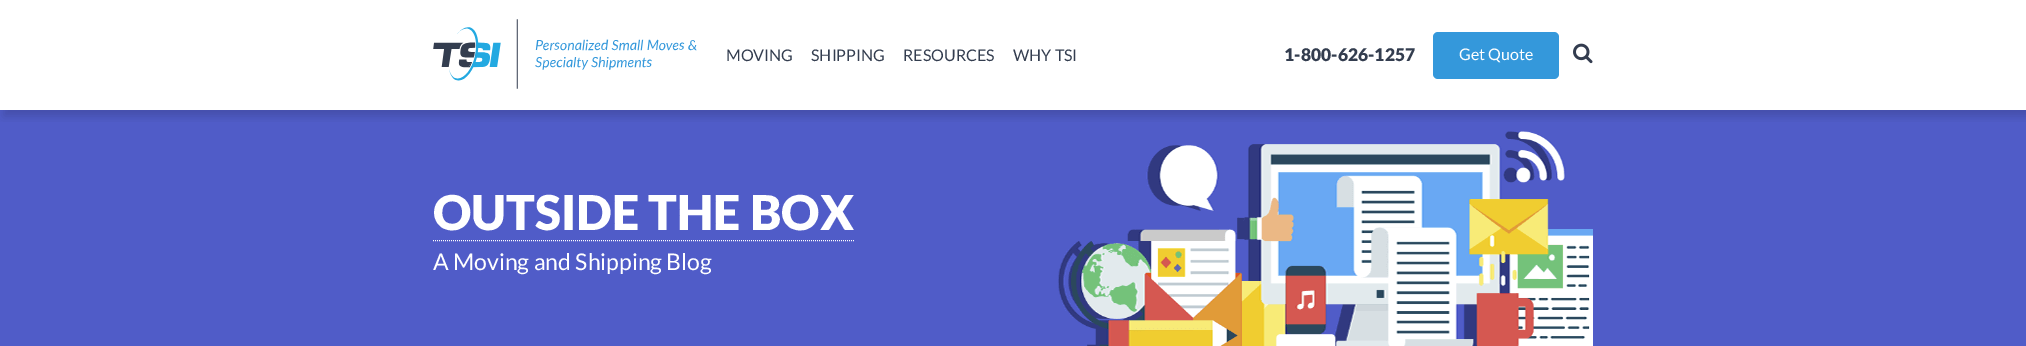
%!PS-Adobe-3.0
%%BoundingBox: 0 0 2026 346
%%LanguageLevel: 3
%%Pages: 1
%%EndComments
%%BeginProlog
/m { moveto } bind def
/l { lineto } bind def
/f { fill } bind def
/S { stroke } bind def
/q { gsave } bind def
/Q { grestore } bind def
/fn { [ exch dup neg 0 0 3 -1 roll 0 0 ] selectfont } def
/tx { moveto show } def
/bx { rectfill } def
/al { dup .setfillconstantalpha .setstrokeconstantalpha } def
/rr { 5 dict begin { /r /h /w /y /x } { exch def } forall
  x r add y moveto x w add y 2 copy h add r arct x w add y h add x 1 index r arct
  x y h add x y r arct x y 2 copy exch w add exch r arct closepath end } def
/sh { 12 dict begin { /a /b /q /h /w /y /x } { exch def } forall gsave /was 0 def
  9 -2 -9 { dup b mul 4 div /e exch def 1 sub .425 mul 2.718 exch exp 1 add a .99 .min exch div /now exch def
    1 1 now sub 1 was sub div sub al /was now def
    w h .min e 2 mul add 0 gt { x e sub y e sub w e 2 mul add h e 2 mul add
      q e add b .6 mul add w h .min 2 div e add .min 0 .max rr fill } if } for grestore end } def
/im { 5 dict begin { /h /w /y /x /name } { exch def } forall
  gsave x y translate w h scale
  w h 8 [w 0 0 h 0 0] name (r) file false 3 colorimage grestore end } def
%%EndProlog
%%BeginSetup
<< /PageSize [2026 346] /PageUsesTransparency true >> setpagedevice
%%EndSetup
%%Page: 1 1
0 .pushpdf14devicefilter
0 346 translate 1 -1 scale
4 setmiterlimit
1 setgray
0 0 2026 346 bx
0.314 0.361 0.784 setrgbcolor
0 110 2026 236 bx
(image2.raw) 1058 131 535 215 im
q
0 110 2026 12 rectclip
0 setgray
4 6 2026 110 0 5 0.15 sh
Q
(image0.raw) 433 19 264 70 im
/Lato-Regular 16 fn
0.2 0.239 0.31 setrgbcolor
(MOVING) 726 61 tx
(SHIPPING) 811 61 tx
(RESOURCES) 903 61 tx
(WHY TSI) 1013 61 tx
/Lato-Black 17.5 fn
(1-800-626-1257) 1284 61 tx
0.204 0.596 0.859 setrgbcolor
1433 32 126 47 5 rr f
/Lato-Regular 16 fn
1 setgray
(Get Quote) 1459 60 tx
(image1.raw) 1573 43 20 21 im
/Lato-Black 48 fn
(OUTSIDE THE BOX) 433 230 tx
[1 1] 0 setdash
433 240.5 m 854 240.5 l S
/Lato-Regular 23 fn
(A Moving and Shipping Blog) 433 270 tx
.poppdf14devicefilter showpage
%%EOF
